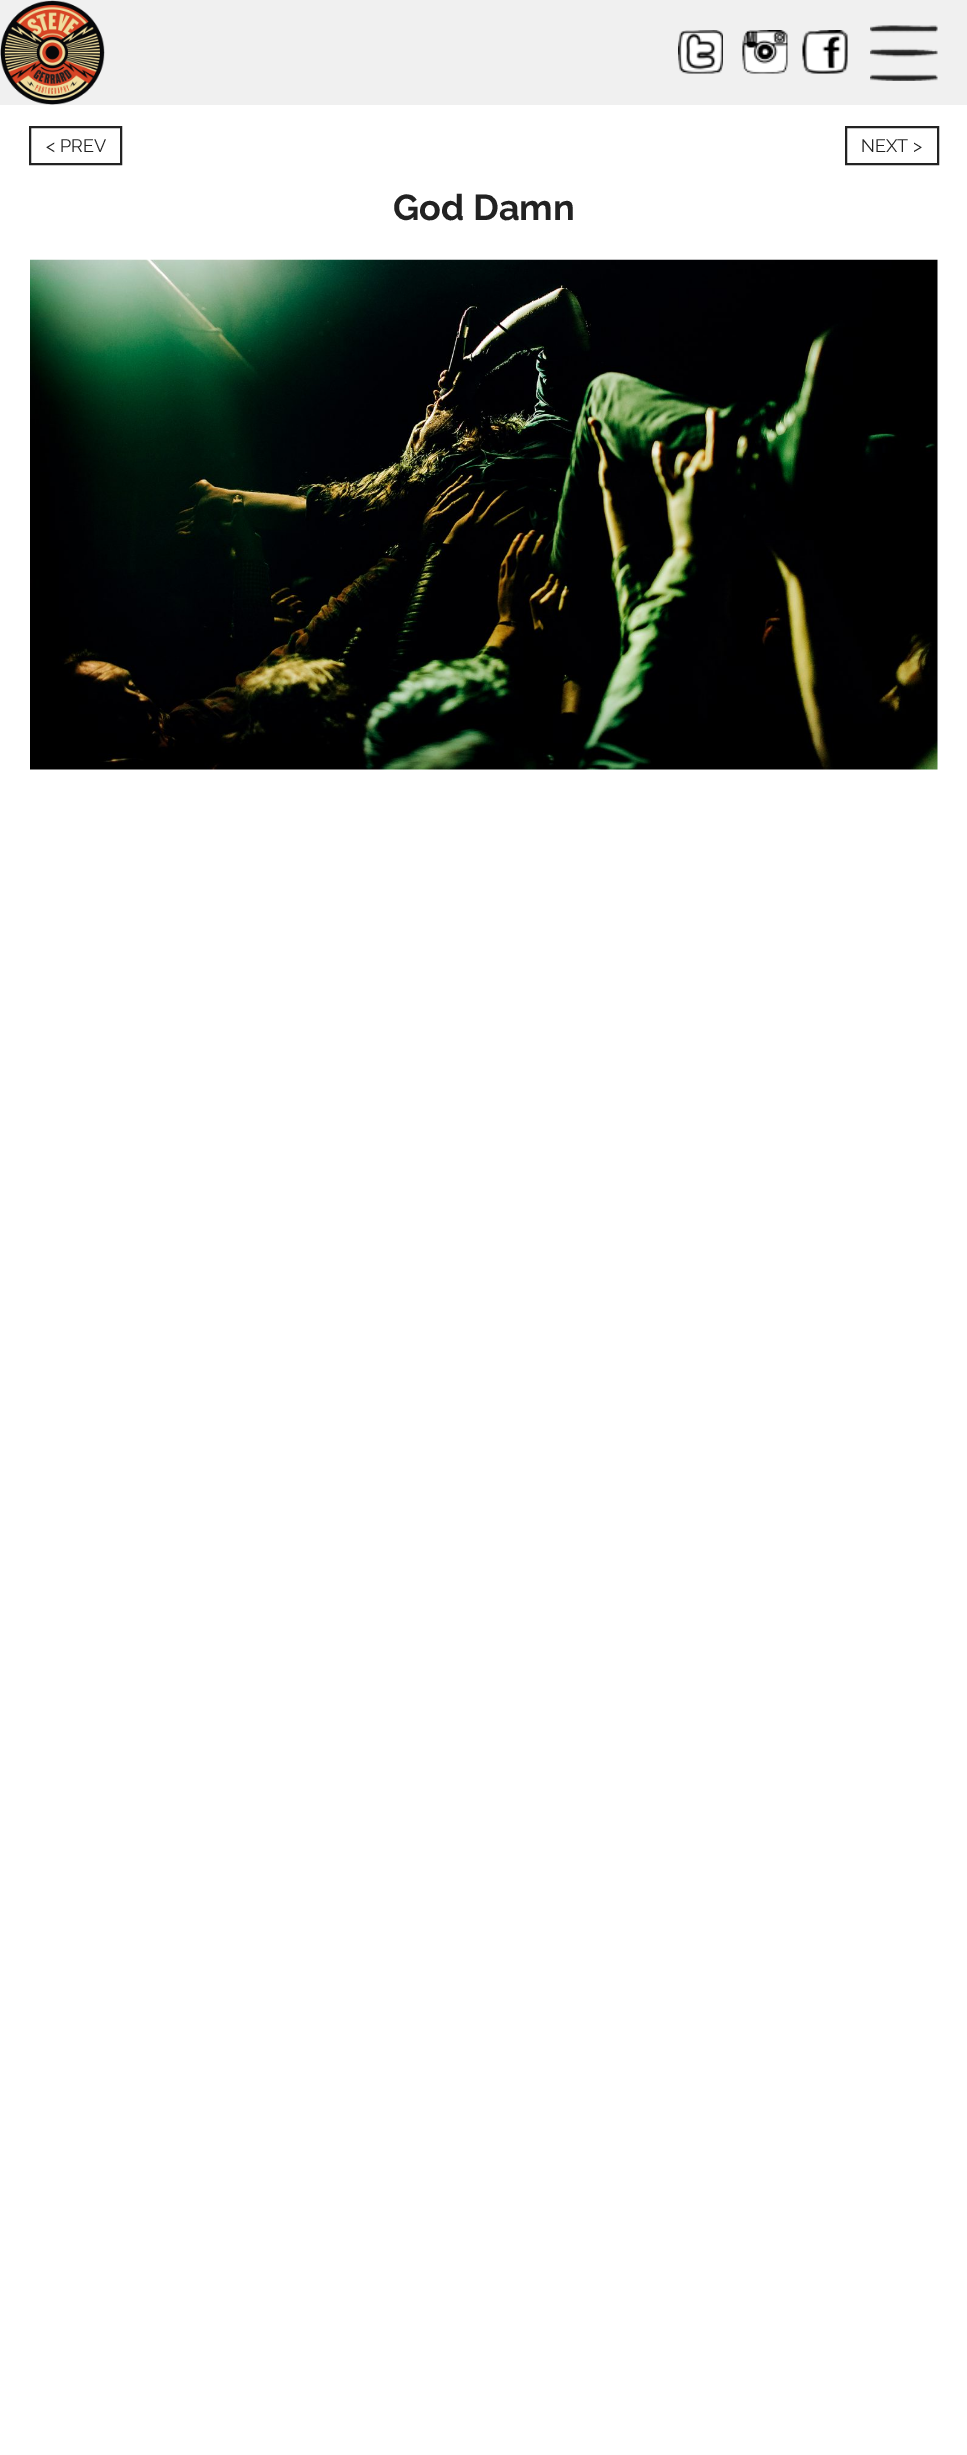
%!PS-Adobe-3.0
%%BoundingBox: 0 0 967 2455
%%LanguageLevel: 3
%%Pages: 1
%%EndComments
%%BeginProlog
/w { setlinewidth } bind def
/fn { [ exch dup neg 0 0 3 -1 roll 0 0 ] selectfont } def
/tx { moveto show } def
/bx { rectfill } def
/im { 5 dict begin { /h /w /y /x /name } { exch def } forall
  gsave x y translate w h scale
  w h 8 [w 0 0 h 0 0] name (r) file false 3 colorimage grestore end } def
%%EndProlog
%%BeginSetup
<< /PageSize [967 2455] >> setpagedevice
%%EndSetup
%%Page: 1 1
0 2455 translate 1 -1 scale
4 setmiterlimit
1 setgray
0 0 967 2455 bx
0.941 setgray
0 0 967 105 bx
(image0.raw) 0 0 105 105 im
(image1.raw) 678 30 45 44 im
(image2.raw) 742 30 46 44 im
(image3.raw) 802 30 46 44 im
(image4.raw) 870 25 68 56 im
0.133 setgray
2 w
30 127 91 37 rectstroke
/Raleway-Regular 18 fn
(< PREV) 46 152 tx
846 127 92 37 rectstroke
(NEXT >) 861 152 tx
/Raleway-Bold 36 fn
(God Damn) 393 220 tx
(image5.raw) 30 259 908 511 im
showpage
%%EOF
